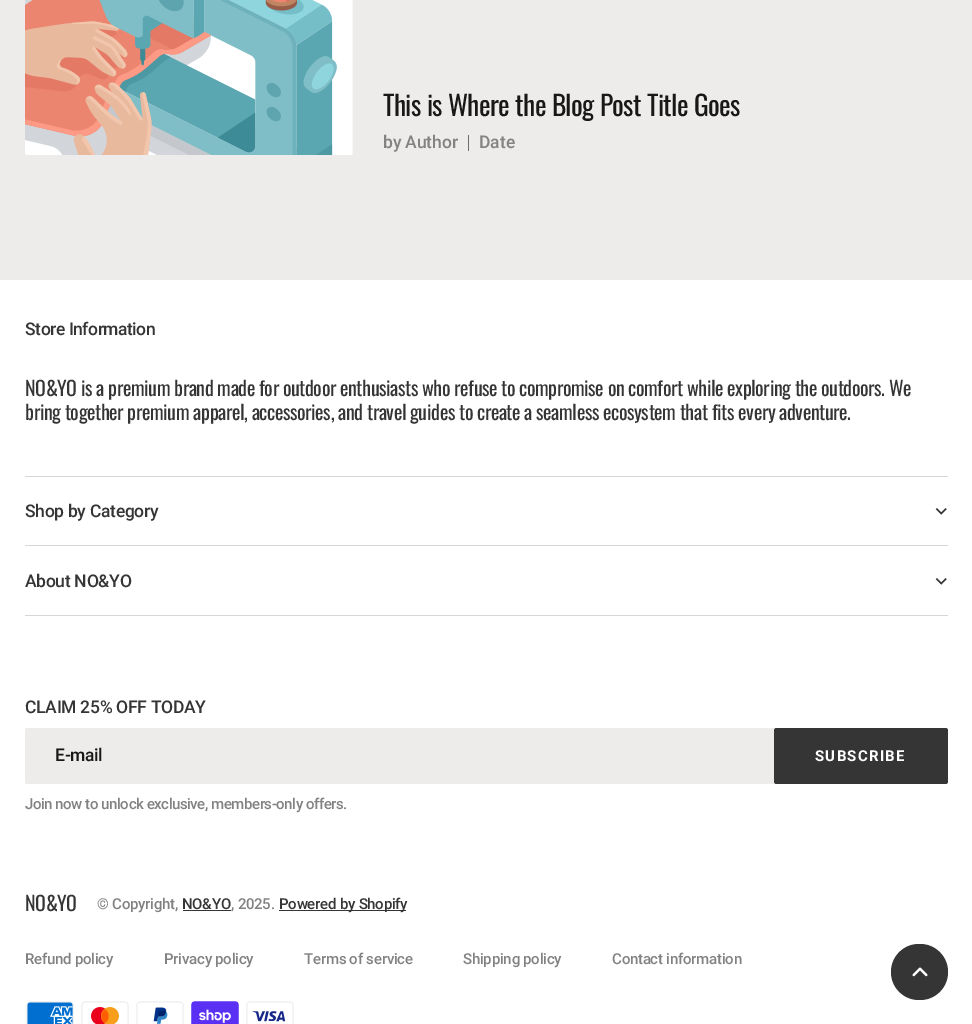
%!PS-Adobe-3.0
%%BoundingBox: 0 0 972 1024
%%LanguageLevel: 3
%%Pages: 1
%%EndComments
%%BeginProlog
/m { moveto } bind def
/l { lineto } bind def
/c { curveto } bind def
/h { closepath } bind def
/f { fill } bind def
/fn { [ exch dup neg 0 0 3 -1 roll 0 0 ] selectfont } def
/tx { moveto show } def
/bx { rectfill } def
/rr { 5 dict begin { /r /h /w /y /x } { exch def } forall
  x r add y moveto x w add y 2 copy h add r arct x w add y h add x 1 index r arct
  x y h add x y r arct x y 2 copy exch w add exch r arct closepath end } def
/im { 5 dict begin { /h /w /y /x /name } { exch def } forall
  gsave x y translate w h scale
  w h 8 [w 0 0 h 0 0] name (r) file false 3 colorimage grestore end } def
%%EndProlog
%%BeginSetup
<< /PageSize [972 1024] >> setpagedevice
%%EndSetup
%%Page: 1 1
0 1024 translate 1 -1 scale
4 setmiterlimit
0.933 0.925 0.918 setrgbcolor
0 0 972 1024 bx
(image0.raw) 25 0 328 155 im
/Oswald-Regular 27.5 fn
0.094 setgray
383 116 m -0.55 0 (This is Where the Blog Post Title Goes) ashow
/Roboto-Medium 17.5 fn
0.514 0.51 0.51 setrgbcolor
(by) 383 148 tx
(Author) 405 148 tx
0.431 0.427 0.424 setrgbcolor
468 135 1 16 bx
0.514 0.51 0.51 setrgbcolor
(Date) 479 148 tx
1 setgray
0 280 972 744 bx
0.208 setgray
25 335 m -0.45 0 (Store Information) ashow
/Oswald-Regular 20 fn
25 396 m -0.4 0 (NO&YO is a premium brand made for outdoor enthusiasts who refuse to compromise on comfort while exploring the outdoors. We) ashow
25 420 m -0.4 0 (bring together premium apparel, accessories, and travel guides to create a seamless ecosystem that fits every adventure.) ashow
0.843 setgray
25 476 923 1 bx
25 545 923 1 bx
/Roboto-Medium 17.5 fn
0.208 setgray
25 517 m -0.3 0 (Shop by Category) ashow
(image1.raw) 935 508 12 7 im
0.843 setgray
25 615 923 1 bx
0.208 setgray
25 587 m -0.3 0 (About NO&YO) ashow
(image1.raw) 935 578 12 7 im
25 713 m -0.3 0 (CLAIM 25% OFF TODAY) ashow
0.933 0.925 0.918 setrgbcolor
27.5 728 m 774 728 l 774 784 l 27.5 784 l 26 784 25 783 25 781.5 c 25 730.5 l 25 729 26 728 27.5 728 c h f
0.094 setgray
55 761 m -0.3 0 (E-mail) ashow
0.208 setgray
774 728 174 56 2.5 rr f
/Roboto-Bold 15 fn
1 setgray
815 761 m 1.25 0 (SUBSCRIBE) ashow
/Roboto-Medium 15 fn
0.514 0.51 0.51 setrgbcolor
25 809 m -0.45 0 (Join now to unlock exclusive, members-only offers.) ashow
/Oswald-Regular 20 fn
0.208 setgray
25 911 m -0.4 0 (NO&YO) ashow
/Roboto-Medium 15 fn
0.514 0.51 0.51 setrgbcolor
97 909 m -0.25 0 (© Copyright,) ashow
0.208 setgray
182 909 m -0.25 0 (NO&YO) ashow
183 910 48 1 bx
0.514 0.51 0.51 setrgbcolor
231 909 m -0.25 0 (, 2025.) ashow
0.208 setgray
279 910 127 1 bx
279 909 m -0.25 0 (Powered by Shopify) ashow
0.514 0.51 0.51 setrgbcolor
25 964 m -0.25 0 (Refund policy) ashow
164 964 m -0.25 0 (Privacy policy) ashow
304 964 m -0.25 0 (Terms of service) ashow
463 964 m -0.25 0 (Shipping policy) ashow
612 964 m -0.25 0 (Contact information) ashow
(image2.raw) 26 1001 48 23 im
(image3.raw) 81 1001 48 23 im
(image4.raw) 136 1001 48 23 im
(image5.raw) 191 1001 48 23 im
(image6.raw) 246 1001 48 23 im
0.208 setgray
891 944 57 56 28 rr f
(image7.raw) 912 967 16 10 im
showpage
%%EOF
